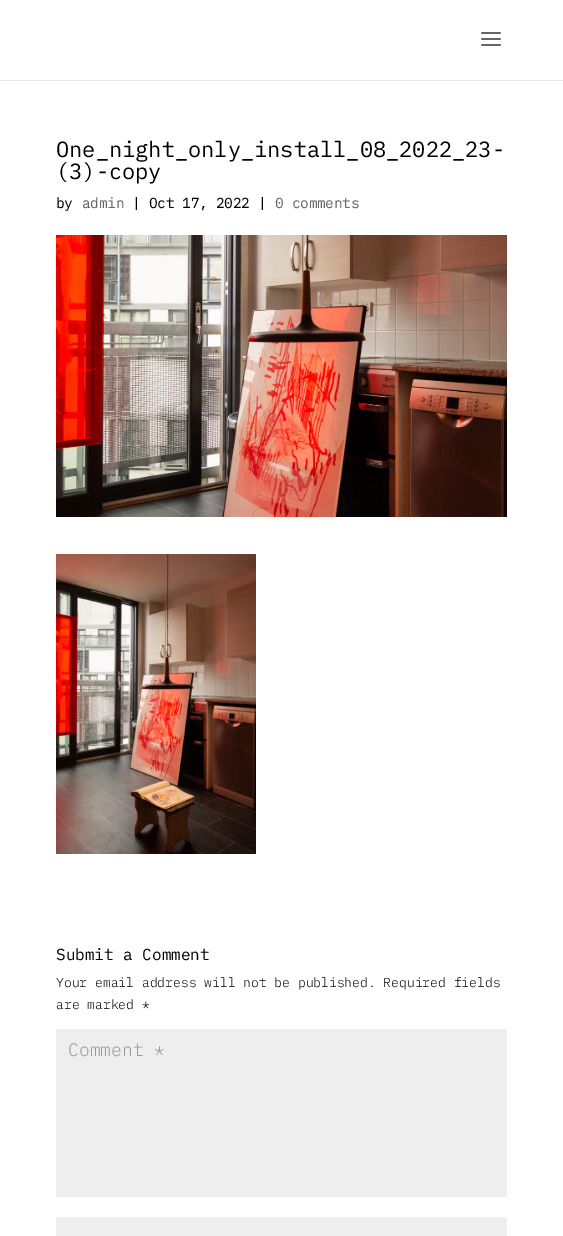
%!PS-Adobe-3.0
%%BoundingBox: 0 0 563 1236
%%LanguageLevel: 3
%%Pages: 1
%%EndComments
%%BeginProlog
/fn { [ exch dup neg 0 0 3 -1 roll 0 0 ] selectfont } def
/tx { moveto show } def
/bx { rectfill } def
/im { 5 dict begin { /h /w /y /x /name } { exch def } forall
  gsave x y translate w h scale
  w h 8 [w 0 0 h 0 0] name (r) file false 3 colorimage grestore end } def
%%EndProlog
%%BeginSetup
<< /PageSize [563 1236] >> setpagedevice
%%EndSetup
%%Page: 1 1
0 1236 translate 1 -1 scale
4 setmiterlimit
1 setgray
0 0 563 1236 bx
0.902 setgray
0 80 563 1 bx
(image0.raw) 481 32 20 14 im
/IBMPlexMono-Regular 22 fn
0 setgray
(One_night_only_install_08_2022_23-) 56 157 tx
(\(3\)-copy) 56 179 tx
/IBMPlexMono-Bold 14 fn
(by) 56 208 tx
0.4 setgray
(admin) 82 208 tx
0 setgray
(| Oct 17, 2022 |) 132 208 tx
0.4 setgray
(0 comments) 275 208 tx
(image1.raw) 56 235 451 282 im
(image2.raw) 56 554 200 300 im
/IBMPlexMono-Regular 16 fn
0 setgray
(Submit a Comment) 56 960 tx
/IBMPlexMono-Light 13 fn
(Your email address will not be published. Required fields) 56 987 tx
(are marked *) 56 1009 tx
0.933 setgray
56 1029 451 168 bx
/IBMPlexMono-Light 18 fn
0.6 setgray
(Comment *) 68 1056 tx
0.933 setgray
56 1217 451 19 bx
showpage
%%EOF
